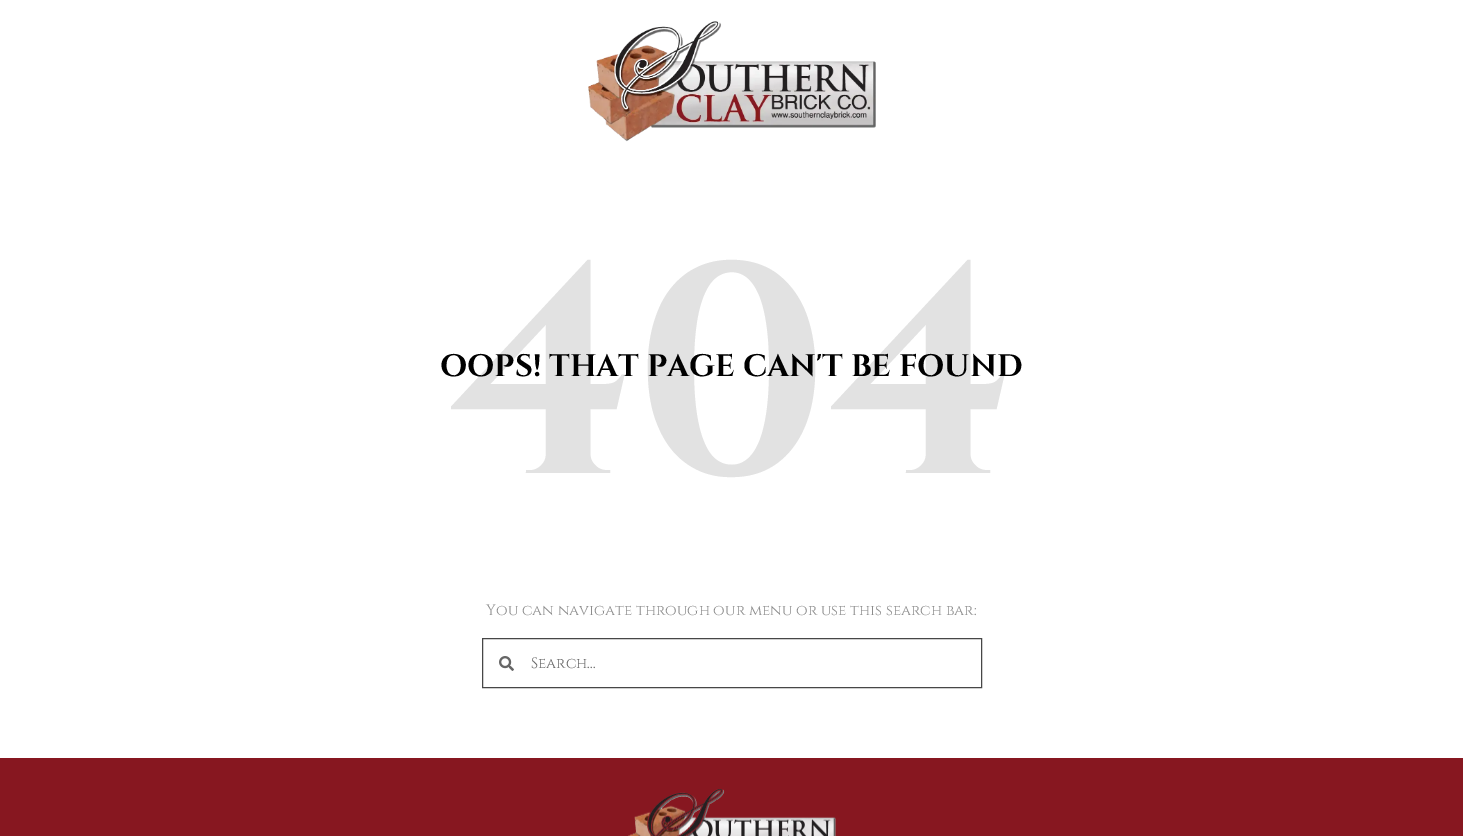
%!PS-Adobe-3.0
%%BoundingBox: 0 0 1463 836
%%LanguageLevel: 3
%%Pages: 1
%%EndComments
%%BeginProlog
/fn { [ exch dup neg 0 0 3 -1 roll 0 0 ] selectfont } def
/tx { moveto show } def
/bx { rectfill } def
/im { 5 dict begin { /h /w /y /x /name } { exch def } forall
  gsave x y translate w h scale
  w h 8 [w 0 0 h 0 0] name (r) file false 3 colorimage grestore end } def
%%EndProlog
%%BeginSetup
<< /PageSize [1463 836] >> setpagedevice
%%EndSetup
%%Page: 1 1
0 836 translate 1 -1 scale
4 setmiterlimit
1 setgray
0 0 1463 836 bx
(image0.raw) 588 21 288 121 im
/Cinzel-Bold 299 fn
0.886 setgray
(404) 449 473 tx
/Cinzel-Bold 31 fn
0 setgray
(OOPS! THAT PAGE CAN'T BE FOUND) 440 376 tx
/Cinzel-Regular 15 fn
0.549 setgray
(You can navigate through our menu or use this search bar:) 486 615 tx
0.278 setgray
482.5 638.5 499 49 rectstroke
(image1.raw) 499 656 15 15 im
0.4 setgray
(Search...) 531 668 tx
0.529 0.09 0.125 setrgbcolor
0 758 1463 78 bx
(image2.raw) 628 789 208 47 im
showpage
%%EOF
